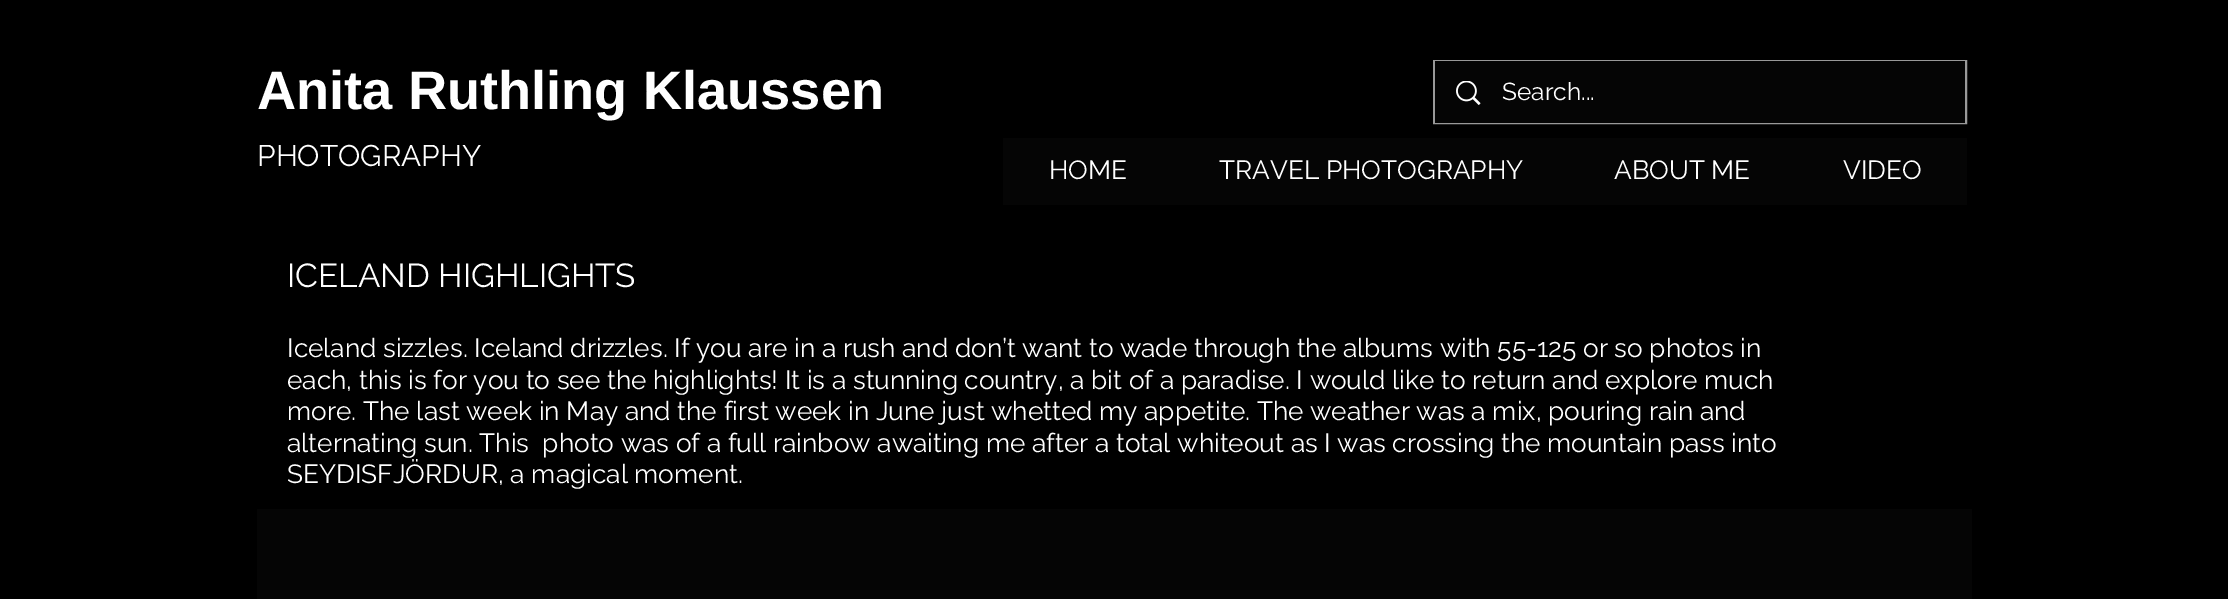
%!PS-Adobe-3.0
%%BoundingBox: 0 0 2228 599
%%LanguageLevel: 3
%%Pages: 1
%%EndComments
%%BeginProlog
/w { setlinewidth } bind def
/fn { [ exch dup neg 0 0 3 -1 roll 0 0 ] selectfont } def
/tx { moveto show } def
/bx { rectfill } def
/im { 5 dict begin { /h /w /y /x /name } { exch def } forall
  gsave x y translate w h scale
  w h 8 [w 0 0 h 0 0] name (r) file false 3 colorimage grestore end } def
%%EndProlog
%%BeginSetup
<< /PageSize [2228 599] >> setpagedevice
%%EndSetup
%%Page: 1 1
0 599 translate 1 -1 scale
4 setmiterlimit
0 setgray
0 0 2228 599 bx
/LiberationSans-Bold 54.25 fn
1 setgray
(Anita Ruthling Klaussen) 257 109 tx
0.6 setgray
2 w
1434 61 532 62 rectstroke
0.02 setgray
1435 61 530 62 bx
(image0.raw) 1456 81 25 24 im
/Raleway-Regular 24.5 fn
1 setgray
(Search...) 1502 100 tx
/Raleway-Regular 29.75 fn
(PHOTOGRAPHY) 257 166 tx
0.02 setgray
1003 138 964 67 bx
/Raleway-Regular 26.25 fn
1 setgray
(HOME) 1049 179 tx
(TRAVEL PHOTOGRAPHY) 1219 179 tx
(ABOUT ME) 1614 179 tx
(VIDEO) 1843 179 tx
/Raleway-Regular 33.25 fn
(ICELAND HIGHLIGHTS) 287 287 tx
/Raleway-Regular 26.25 fn
(Iceland sizzles. Iceland drizzles. If you are in a rush and don’t want to wade through the albums with 55-125 or so photos in) 287 357 tx
(each, this is for you to see the highlights! It is a stunning country, a bit of a paradise. I would like to return and explore much) 287 389 tx
(more. The last week in May and the first week in June just whetted my appetite. The weather was a mix, pouring rain and) 287 420 tx
(alternating sun. This  photo was of a full rainbow awaiting me after a total whiteout as I was crossing the mountain pass into) 287 452 tx
(SEYDISFJÖRDUR, a magical moment.) 287 483 tx
0.02 setgray
257 509 1715 90 bx
showpage
%%EOF
